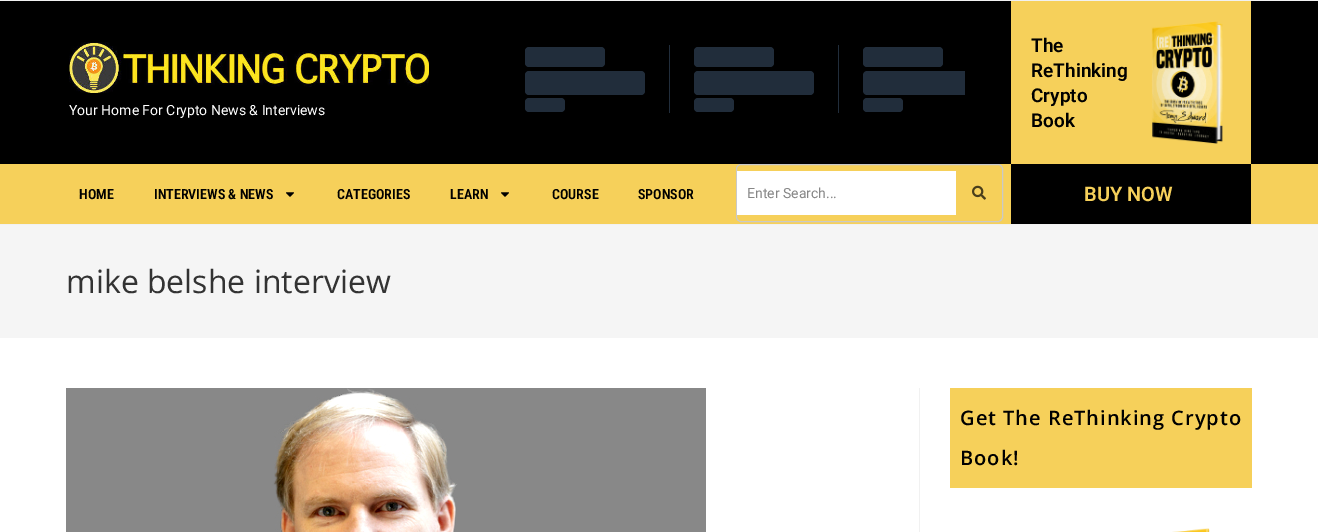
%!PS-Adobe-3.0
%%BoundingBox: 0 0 1318 532
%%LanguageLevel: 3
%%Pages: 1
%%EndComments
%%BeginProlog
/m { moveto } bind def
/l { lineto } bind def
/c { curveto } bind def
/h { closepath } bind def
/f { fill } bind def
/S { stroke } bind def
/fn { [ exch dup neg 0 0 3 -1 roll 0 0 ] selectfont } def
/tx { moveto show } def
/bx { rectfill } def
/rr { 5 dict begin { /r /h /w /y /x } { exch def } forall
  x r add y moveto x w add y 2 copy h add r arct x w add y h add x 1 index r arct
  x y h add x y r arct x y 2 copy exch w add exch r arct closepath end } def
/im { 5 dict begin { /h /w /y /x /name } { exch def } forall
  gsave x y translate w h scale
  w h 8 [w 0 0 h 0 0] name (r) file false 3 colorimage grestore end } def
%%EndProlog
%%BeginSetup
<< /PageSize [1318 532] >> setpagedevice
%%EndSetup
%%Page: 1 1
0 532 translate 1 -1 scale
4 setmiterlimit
1 setgray
0 0 1318 532 bx
0.945 setgray
0 0 1318 1 bx
0 224 1318 1 bx
0 setgray
0 1 1318 163 bx
(image0.raw) 69 42 360 51 im
/Roboto-Regular 14 fn
1 setgray
(Your Home For Crypto News & Interviews) 69 115 tx
0.129 0.176 0.231 setrgbcolor
669 45 1 68 bx
525 47 80 20 4 rr f
525 71 120 24 4 rr f
525 98 40 14 4 rr f
838 45 1 68 bx
694 47 80 20 4 rr f
694 71 120 24 4 rr f
694 98 40 14 4 rr f
863 47 80 20 4 rr f
867 71 m 965 71 l 965 95 l 867 95 l 865 95 863 93 863 91 c 863 75 l 863 73 865 71 867 71 c h f
863 98 40 14 4 rr f
0.965 0.816 0.353 setrgbcolor
1011 1 240 163 bx
/Roboto-SemiBold 19 fn
0 setgray
(The) 1031 52 tx
(ReThinking) 1031 77 tx
(Crypto) 1031 102 tx
(Book) 1031 127 tx
(image1.raw) 1151 21 72 123 im
0.965 0.816 0.353 setrgbcolor
0 164 1318 60 bx
/RobotoCondensed-SemiBold 14 fn
0 setgray
(HOME) 79 199 tx
(INTERVIEWS & NEWS) 154 199 tx
(image2.raw) 286 192 8 5 im
(CATEGORIES) 337 199 tx
(LEARN) 450 199 tx
(image2.raw) 501 192 8 5 im
(COURSE) 552 199 tx
(SPONSOR) 638 199 tx
0.788 setgray
736.5 164.5 266 57 4.5 rr S
1 setgray
737 171 219 44 bx
/Roboto-Regular 14 fn
0.529 setgray
(Enter Search...) 747 198 tx
(image3.raw) 972 185 14 15 im
0 setgray
1011 164 240 60 bx
/Roboto-SemiBold 20 fn
0.965 0.816 0.353 setrgbcolor
(BUY NOW) 1084 201 tx
0.961 setgray
0 225 1318 113 bx
/OpenSans-Regular 32 fn
0.2 setgray
(mike belshe interview) 66 293 tx
0.945 setgray
919 388 1 144 bx
(image4.raw) 66 388 640 144 im
0.965 0.816 0.353 setrgbcolor
950 388 302 100 bx
/OpenSans-SemiBold 20 fn
0 setgray
960 425 m 1 0 (Get The ReThinking Crypto) ashow
960 465 m 1 0 (Book!) ashow
(image5.raw) 1172 528 38 4 im
showpage
%%EOF
